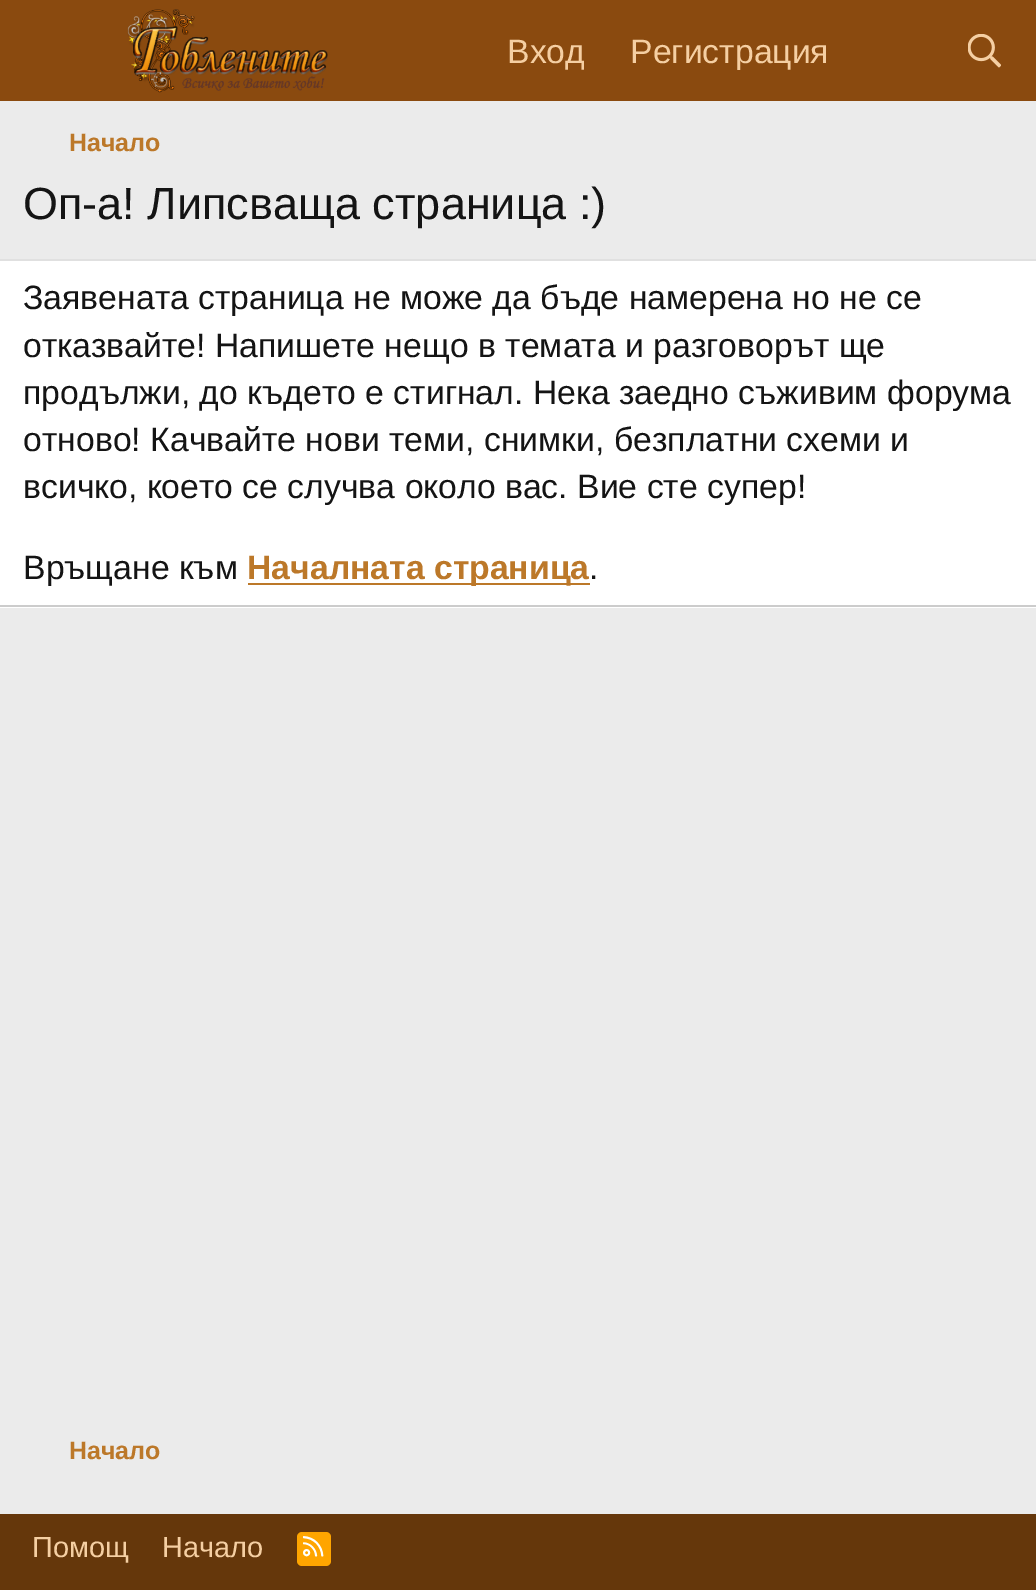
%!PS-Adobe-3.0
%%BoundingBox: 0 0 1036 1590
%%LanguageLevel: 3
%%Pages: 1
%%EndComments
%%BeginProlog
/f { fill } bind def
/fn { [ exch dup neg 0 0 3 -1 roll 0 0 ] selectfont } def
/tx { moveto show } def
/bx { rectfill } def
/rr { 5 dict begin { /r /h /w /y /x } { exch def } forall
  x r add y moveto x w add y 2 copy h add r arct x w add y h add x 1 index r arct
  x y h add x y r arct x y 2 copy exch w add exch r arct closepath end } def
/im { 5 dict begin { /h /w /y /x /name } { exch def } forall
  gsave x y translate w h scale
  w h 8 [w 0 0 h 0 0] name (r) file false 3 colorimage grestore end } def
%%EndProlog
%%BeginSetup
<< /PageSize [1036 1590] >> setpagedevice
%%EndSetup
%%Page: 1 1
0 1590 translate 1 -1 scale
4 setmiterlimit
0.922 setgray
0 0 1036 1590 bx
0.541 0.29 0.059 setrgbcolor
0 0 1036 101 bx
(image0.raw) 127 9 201 84 im
/LiberationSans-Regular 33.75 fn
0.961 0.812 0.639 setrgbcolor
(Вход) 507 63 tx
(Регистрация) 630 63 tx
(image1.raw) 968 34 33 34 im
/LiberationSans-Bold 25 fn
0.737 0.471 0.161 setrgbcolor
(Начало) 69 151 tx
/LiberationSans-Regular 45 fn
0.078 setgray
(Оп-а! Липсваща страница :\)) 23 219 tx
1 setgray
0 261 1036 347 bx
0.878 setgray
0 259 1036 2 bx
0.8 setgray
0 605 1036 2 bx
/LiberationSans-Regular 33.75 fn
0.078 setgray
(Заявената страница не може да бъде намерена но не се) 23 309 tx
(отказвайте! Напишете нещо в темата и разговорът ще) 23 357 tx
(продължи, до където е стигнал. Нека заедно съживим форума) 23 404 tx
(отново! Качвайте нови теми, снимки, безплатни схеми и) 23 451 tx
(всичко, което се случва около вас. Вие сте супер!) 23 498 tx
(Връщане към) 23 579 tx
0.737 0.471 0.161 setrgbcolor
248 583 342 2 bx
/LiberationSans-Bold 33.75 fn
(Началната страница) 247 579 tx
/LiberationSans-Regular 33.75 fn
0.078 setgray
(.) 589 579 tx
/LiberationSans-Bold 25 fn
0.737 0.471 0.161 setrgbcolor
(Начало) 69 1459 tx
0.396 0.216 0.043 setrgbcolor
0 1514 1036 76 bx
/LiberationSans-Regular 29 fn
0.961 0.812 0.639 setrgbcolor
(Помощ) 32 1557 tx
(Начало) 162 1557 tx
1 0.647 0 setrgbcolor
297 1532 34 34 5 rr f
(image2.raw) 303 1536 21 21 im
showpage
%%EOF
